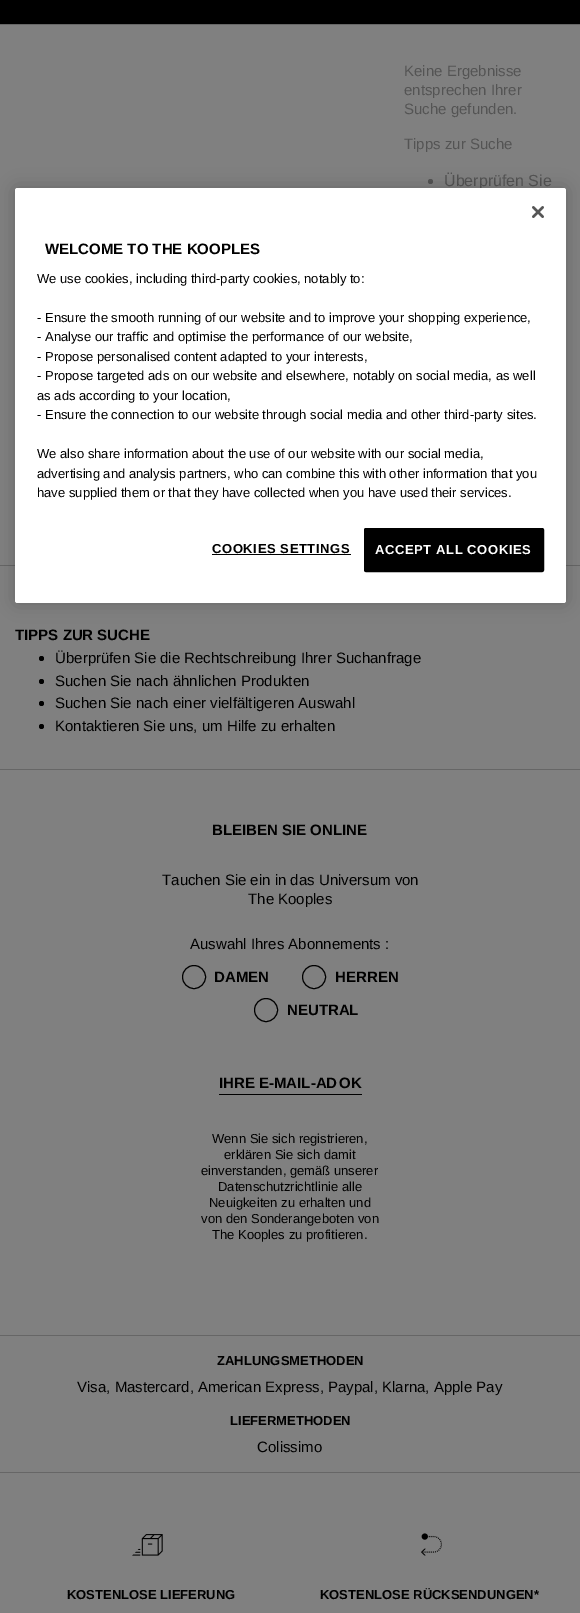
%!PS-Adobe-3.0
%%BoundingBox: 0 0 580 1613
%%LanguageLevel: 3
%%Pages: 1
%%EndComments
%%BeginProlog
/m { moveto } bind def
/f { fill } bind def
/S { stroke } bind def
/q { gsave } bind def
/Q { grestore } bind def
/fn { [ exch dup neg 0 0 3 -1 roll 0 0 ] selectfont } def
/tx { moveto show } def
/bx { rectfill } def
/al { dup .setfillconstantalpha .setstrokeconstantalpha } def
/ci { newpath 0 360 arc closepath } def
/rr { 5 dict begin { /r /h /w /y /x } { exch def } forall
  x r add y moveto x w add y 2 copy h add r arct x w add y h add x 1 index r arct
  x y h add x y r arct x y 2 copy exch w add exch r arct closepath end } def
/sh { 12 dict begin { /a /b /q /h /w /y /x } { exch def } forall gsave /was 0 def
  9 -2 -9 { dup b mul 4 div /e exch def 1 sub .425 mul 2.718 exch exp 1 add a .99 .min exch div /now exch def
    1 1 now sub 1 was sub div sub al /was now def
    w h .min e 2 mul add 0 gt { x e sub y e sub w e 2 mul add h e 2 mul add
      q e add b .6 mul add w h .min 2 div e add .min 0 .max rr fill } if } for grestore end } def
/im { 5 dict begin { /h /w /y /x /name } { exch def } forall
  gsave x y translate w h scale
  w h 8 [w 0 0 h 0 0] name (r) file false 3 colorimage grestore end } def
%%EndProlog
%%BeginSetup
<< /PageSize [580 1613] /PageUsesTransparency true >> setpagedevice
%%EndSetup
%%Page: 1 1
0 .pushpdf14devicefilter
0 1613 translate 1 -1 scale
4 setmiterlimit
0.502 setgray
0 0 580 1613 bx
0.4 setgray
0 24 580 1 bx
0 setgray
0 0 580 24 bx
/LiberationSans-Regular 15 fn
0.329 setgray
(Keine Ergebnisse) 404 76 tx
(entsprechen Ihrer) 404 95 tx
(Suche gefunden.) 404 114 tx
(Tipps zur Suche) 404 149 tx
430.5 181.5 2.5 ci f
/LiberationSans-Regular 16 fn
(Überprüfen Sie) 444 186 tx
0.4 setgray
0 565 580 1 bx
0 769 580 1 bx
/LiberationSans-Bold 15 fn
0 setgray
(TIPPS ZUR SUCHE) 15 640 tx
41.5 658.5 2.5 ci f
/LiberationSans-Regular 15 fn
(Überprüfen Sie die Rechtschreibung Ihrer Suchanfrage) 55 663 tx
41.5 681.5 2.5 ci f
(Suchen Sie nach ähnlichen Produkten) 55 686 tx
41.5 703.5 2.5 ci f
(Suchen Sie nach einer vielfältigeren Auswahl) 55 708 tx
41.5 726.5 2.5 ci f
(Kontaktieren Sie uns, um Hilfe zu erhalten) 55 731 tx
15 188 551 415 2.5 9 0.2 sh
1 setgray
15 188 551 415 2.5 rr f
(image0.raw) 532 206 12 12 im
/LiberationSans-Bold 15 fn
0 setgray
(WELCOME TO THE KOOPLES) 45 254 tx
/LiberationSans-Regular 13 fn
(We use cookies, including third-party cookies, notably to:) 37 283 tx
(- Ensure the smooth running of our website and to improve your shopping experience,) 37 322 tx
(- Analyse our traffic and optimise the performance of our website,) 37 341 tx
(- Propose personalised content adapted to your interests,) 37 361 tx
(- Propose targeted ads on our website and elsewhere, notably on social media, as well) 37 380 tx
(as ads according to your location,) 37 400 tx
(- Ensure the connection to our website through social media and other third-party sites.) 37 419 tx
(We also share information about the use of our website with our social media,) 37 458 tx
(advertising and analysis partners, who can combine this with other information that you) 37 478 tx
(have supplied them or that they have collected when you have used their services.) 37 497 tx
/LiberationSans-Bold 13 fn
212 553 m 0.6 0 (COOKIES SETTINGS) ashow
212 554 139 1 bx
364.5 528.5 179 43 1.5 rr q f Q
S
1 setgray
375 554 m 0.6 0 (ACCEPT ALL COOKIES) ashow
/LiberationSans-Bold 15 fn
0 setgray
(BLEIBEN SIE ONLINE) 212 835 tx
/LiberationSans-Regular 15 fn
(Tauchen Sie ein in das Universum von) 162 885 tx
(The Kooples) 248 904 tx
(Auswahl Ihres Abonnements :) 190 949 tx
194 977 11.5 ci S
/LiberationSans-Bold 15 fn
(DAMEN) 214 982 tx
314 977 11.5 ci S
(HERREN) 335 982 tx
266 1010 11.5 ci S
(NEUTRAL) 287 1015 tx
219 1094 143 1 bx
(IHRE E-MAIL-AD) 219 1088 tx
(OK) 339 1088 tx
/LiberationSans-Regular 13 fn
(Wenn Sie sich registrieren,) 212 1143 tx
(erklären Sie sich damit) 224 1159 tx
(einverstanden, gemäß unserer) 201 1175 tx
(Datenschutzrichtlinie alle) 218 1191 tx
(Neuigkeiten zu erhalten und) 209 1207 tx
(von den Sonderangeboten von) 201 1223 tx
(The Kooples zu profitieren.) 212 1239 tx
0.4 setgray
0 1335 580 1 bx
/LiberationSans-Bold 13 fn
0 setgray
(ZAHLUNGSMETHODEN) 217 1365 tx
/LiberationSans-Regular 15 fn
(Visa, Mastercard, American Express, Paypal, Klarna, Apple Pay) 77 1392 tx
/LiberationSans-Bold 13 fn
(LIEFERMETHODEN) 230 1425 tx
/LiberationSans-Regular 15 fn
(Colissimo) 257 1452 tx
0.4 setgray
0 1472 580 1 bx
(image1.raw) 132 1534 31 22 im
/LiberationSans-Bold 13 fn
0 setgray
(KOSTENLOSE LIEFERUNG) 67 1599 tx
(image2.raw) 421 1533 21 23 im
(KOSTENLOSE RÜCKSENDUNGEN*) 320 1599 tx
.poppdf14devicefilter showpage
%%EOF
